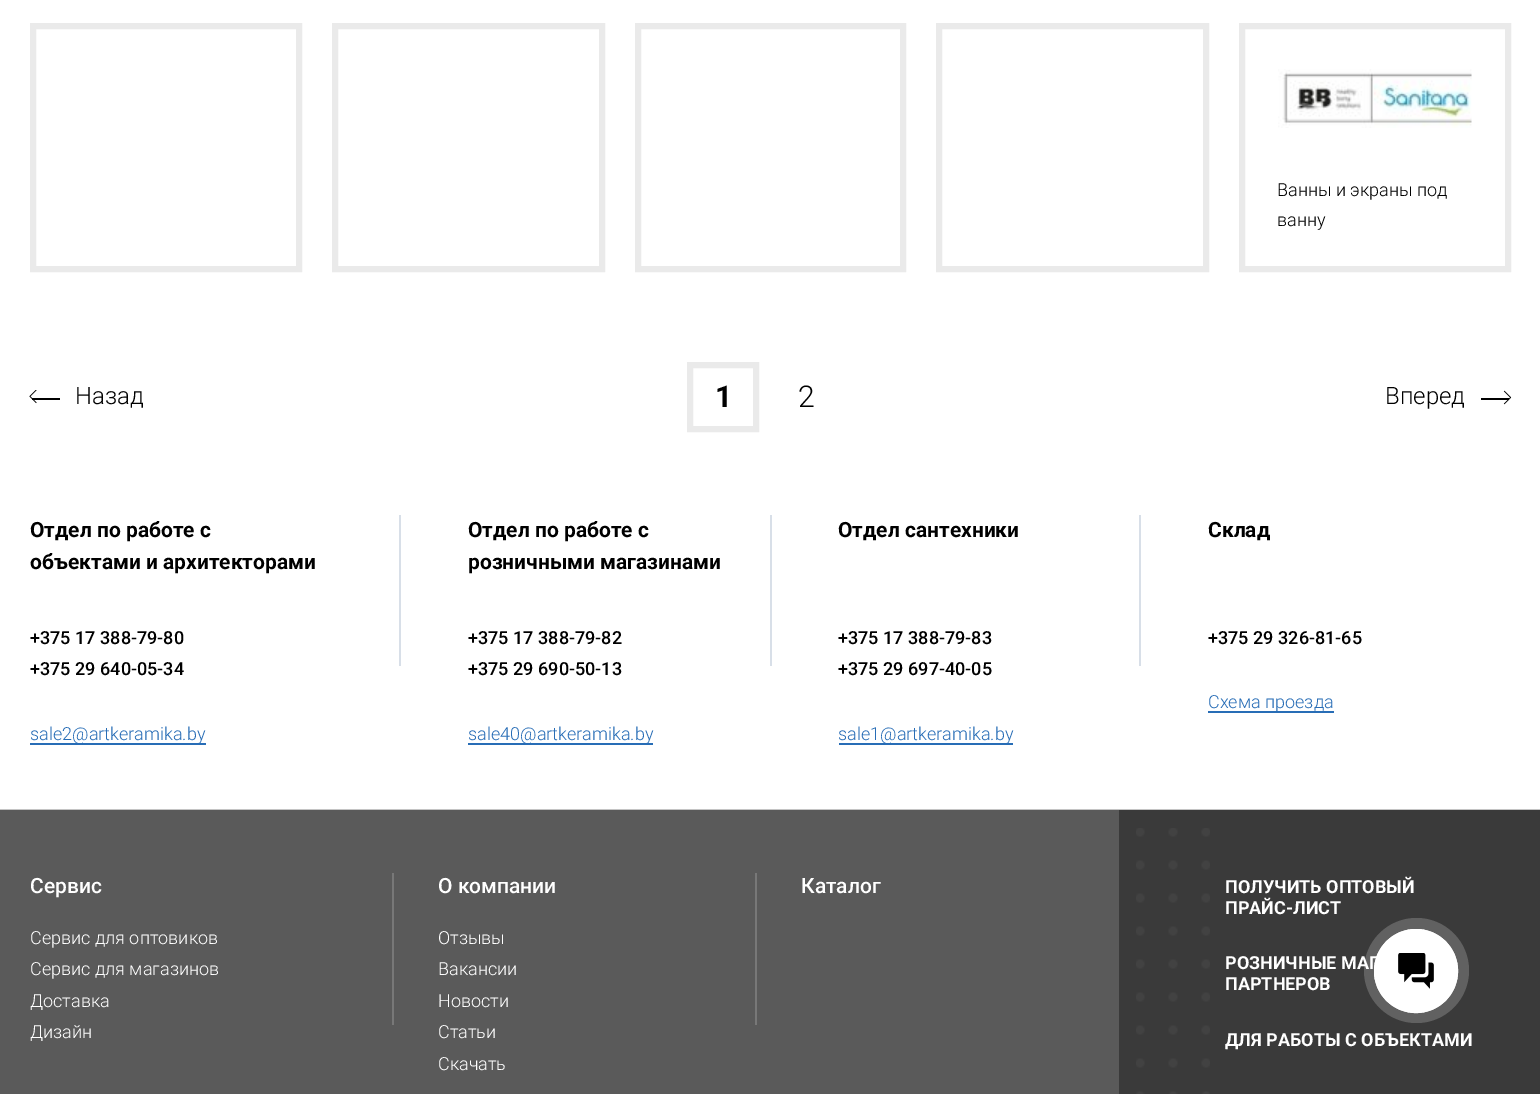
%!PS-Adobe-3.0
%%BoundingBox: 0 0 1540 1094
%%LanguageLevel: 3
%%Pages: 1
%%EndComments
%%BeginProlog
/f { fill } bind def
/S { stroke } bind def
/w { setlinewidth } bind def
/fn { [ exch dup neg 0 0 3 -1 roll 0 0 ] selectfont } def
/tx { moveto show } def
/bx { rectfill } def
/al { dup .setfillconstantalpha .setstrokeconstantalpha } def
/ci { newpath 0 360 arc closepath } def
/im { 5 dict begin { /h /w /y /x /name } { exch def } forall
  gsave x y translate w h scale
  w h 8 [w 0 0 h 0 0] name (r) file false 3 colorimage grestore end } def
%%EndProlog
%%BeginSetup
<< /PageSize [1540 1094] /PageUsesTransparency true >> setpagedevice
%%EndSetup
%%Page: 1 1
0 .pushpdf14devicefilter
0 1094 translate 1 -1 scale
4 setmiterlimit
1 setgray
0 0 1540 1094 bx
0.918 setgray
6 w
33 26 266 243 rectstroke
335 26 267 243 rectstroke
638 26 265 243 rectstroke
939 26 267 243 rectstroke
1242 26 266 243 rectstroke
(image0.raw) 1278 69 194 59 im
/Roboto-Light 18 fn
0 setgray
(Ванны и экраны под) 1277 196 tx
(ванну) 1277 226 tx
32 398 28 2 bx
(image1.raw) 29 390 8 14 im
/Roboto-Light 24 fn
(Назад) 75 404 tx
0.918 setgray
690 365 66 64 rectstroke
/Roboto-Bold 30 fn
0 setgray
(1) 715 407 tx
/Roboto-Light 30 fn
(2) 798 407 tx
/Roboto-Light 24 fn
(Вперед) 1385 404 tx
(image2.raw) 1503 390 9 15 im
1481 398 28 2 bx
0.769 setgray
0 809 1540 1 bx
/Roboto-Bold 21 fn
0 setgray
(Отдел по работе с) 30 537 tx
(объектами и архитекторами) 30 569 tx
0.847 0.875 0.91 setrgbcolor
399 515 2 151 bx
/Roboto-Medium 18 fn
0 setgray
(+375 17 388-79-80) 30 644 tx
(+375 29 640-05-34) 30 675 tx
/Roboto-Light 18 fn
0.157 0.427 0.714 setrgbcolor
(sale2@artkeramika.by) 30 740 tx
30 743 176 2 bx
/Roboto-Bold 21 fn
0 setgray
(Отдел по работе с) 468 537 tx
(розничными магазинами) 468 569 tx
0.847 0.875 0.91 setrgbcolor
770 515 2 151 bx
/Roboto-Medium 18 fn
0 setgray
(+375 17 388-79-82) 468 644 tx
(+375 29 690-50-13) 468 675 tx
/Roboto-Light 18 fn
0.157 0.427 0.714 setrgbcolor
(sale40@artkeramika.by) 468 740 tx
468 743 185 2 bx
/Roboto-Bold 21 fn
0 setgray
(Отдел сантехники) 838 537 tx
0.847 0.875 0.91 setrgbcolor
1139 515 2 151 bx
/Roboto-Medium 18 fn
0 setgray
(+375 17 388-79-83) 838 644 tx
(+375 29 697-40-05) 838 675 tx
/Roboto-Light 18 fn
0.157 0.427 0.714 setrgbcolor
(sale1@artkeramika.by) 838 740 tx
839 743 174 2 bx
/Roboto-Bold 21 fn
0 setgray
(Склад) 1208 537 tx
/Roboto-Medium 18 fn
(+375 29 326-81-65) 1208 644 tx
/Roboto-Light 18 fn
0.157 0.427 0.714 setrgbcolor
(Схема проезда) 1208 708 tx
1208 711 126 2 bx
0.353 setgray
0 810 1119 284 bx
/Roboto-Medium 21 fn
1 setgray
(Сервис) 30 893 tx
0.471 setgray
392 873 2 152 bx
/Roboto-Light 18 fn
1 setgray
(Сервис для оптовиков) 30 944 tx
(Сервис для магазинов) 30 975 tx
(Доставка) 30 1007 tx
(Дизайн) 30 1038 tx
/Roboto-Medium 21 fn
(О компании) 438 893 tx
0.471 setgray
755 873 2 152 bx
/Roboto-Light 18 fn
1 setgray
(Отзывы) 438 944 tx
(Вакансии) 438 975 tx
(Новости) 438 1007 tx
(Статьи) 438 1038 tx
(Скачать) 438 1070 tx
/Roboto-Medium 21 fn
(Каталог) 801 893 tx
0.227 setgray
1119 810 421 284 bx
(image3.raw) 1136 828 74 266 im
/Roboto-Bold 18 fn
1 setgray
(ПОЛУЧИТЬ ОПТОВЫЙ) 1225 893 tx
(ПРАЙС-ЛИСТ) 1225 914 tx
(РОЗНИЧНЫЕ МАГ) 1225 969 tx
(ПАРТНЕРОВ) 1225 990 tx
(ДЛЯ РАБОТЫ С ОБЪЕКТАМИ) 1225 1046 tx
0.2 al
1416.5 970.5 52.5 ci f
1 al
1 w
1416 971 41.5 ci S
1416 971 42 ci f
(image4.raw) 1398 953 36 36 im
.poppdf14devicefilter showpage
%%EOF
